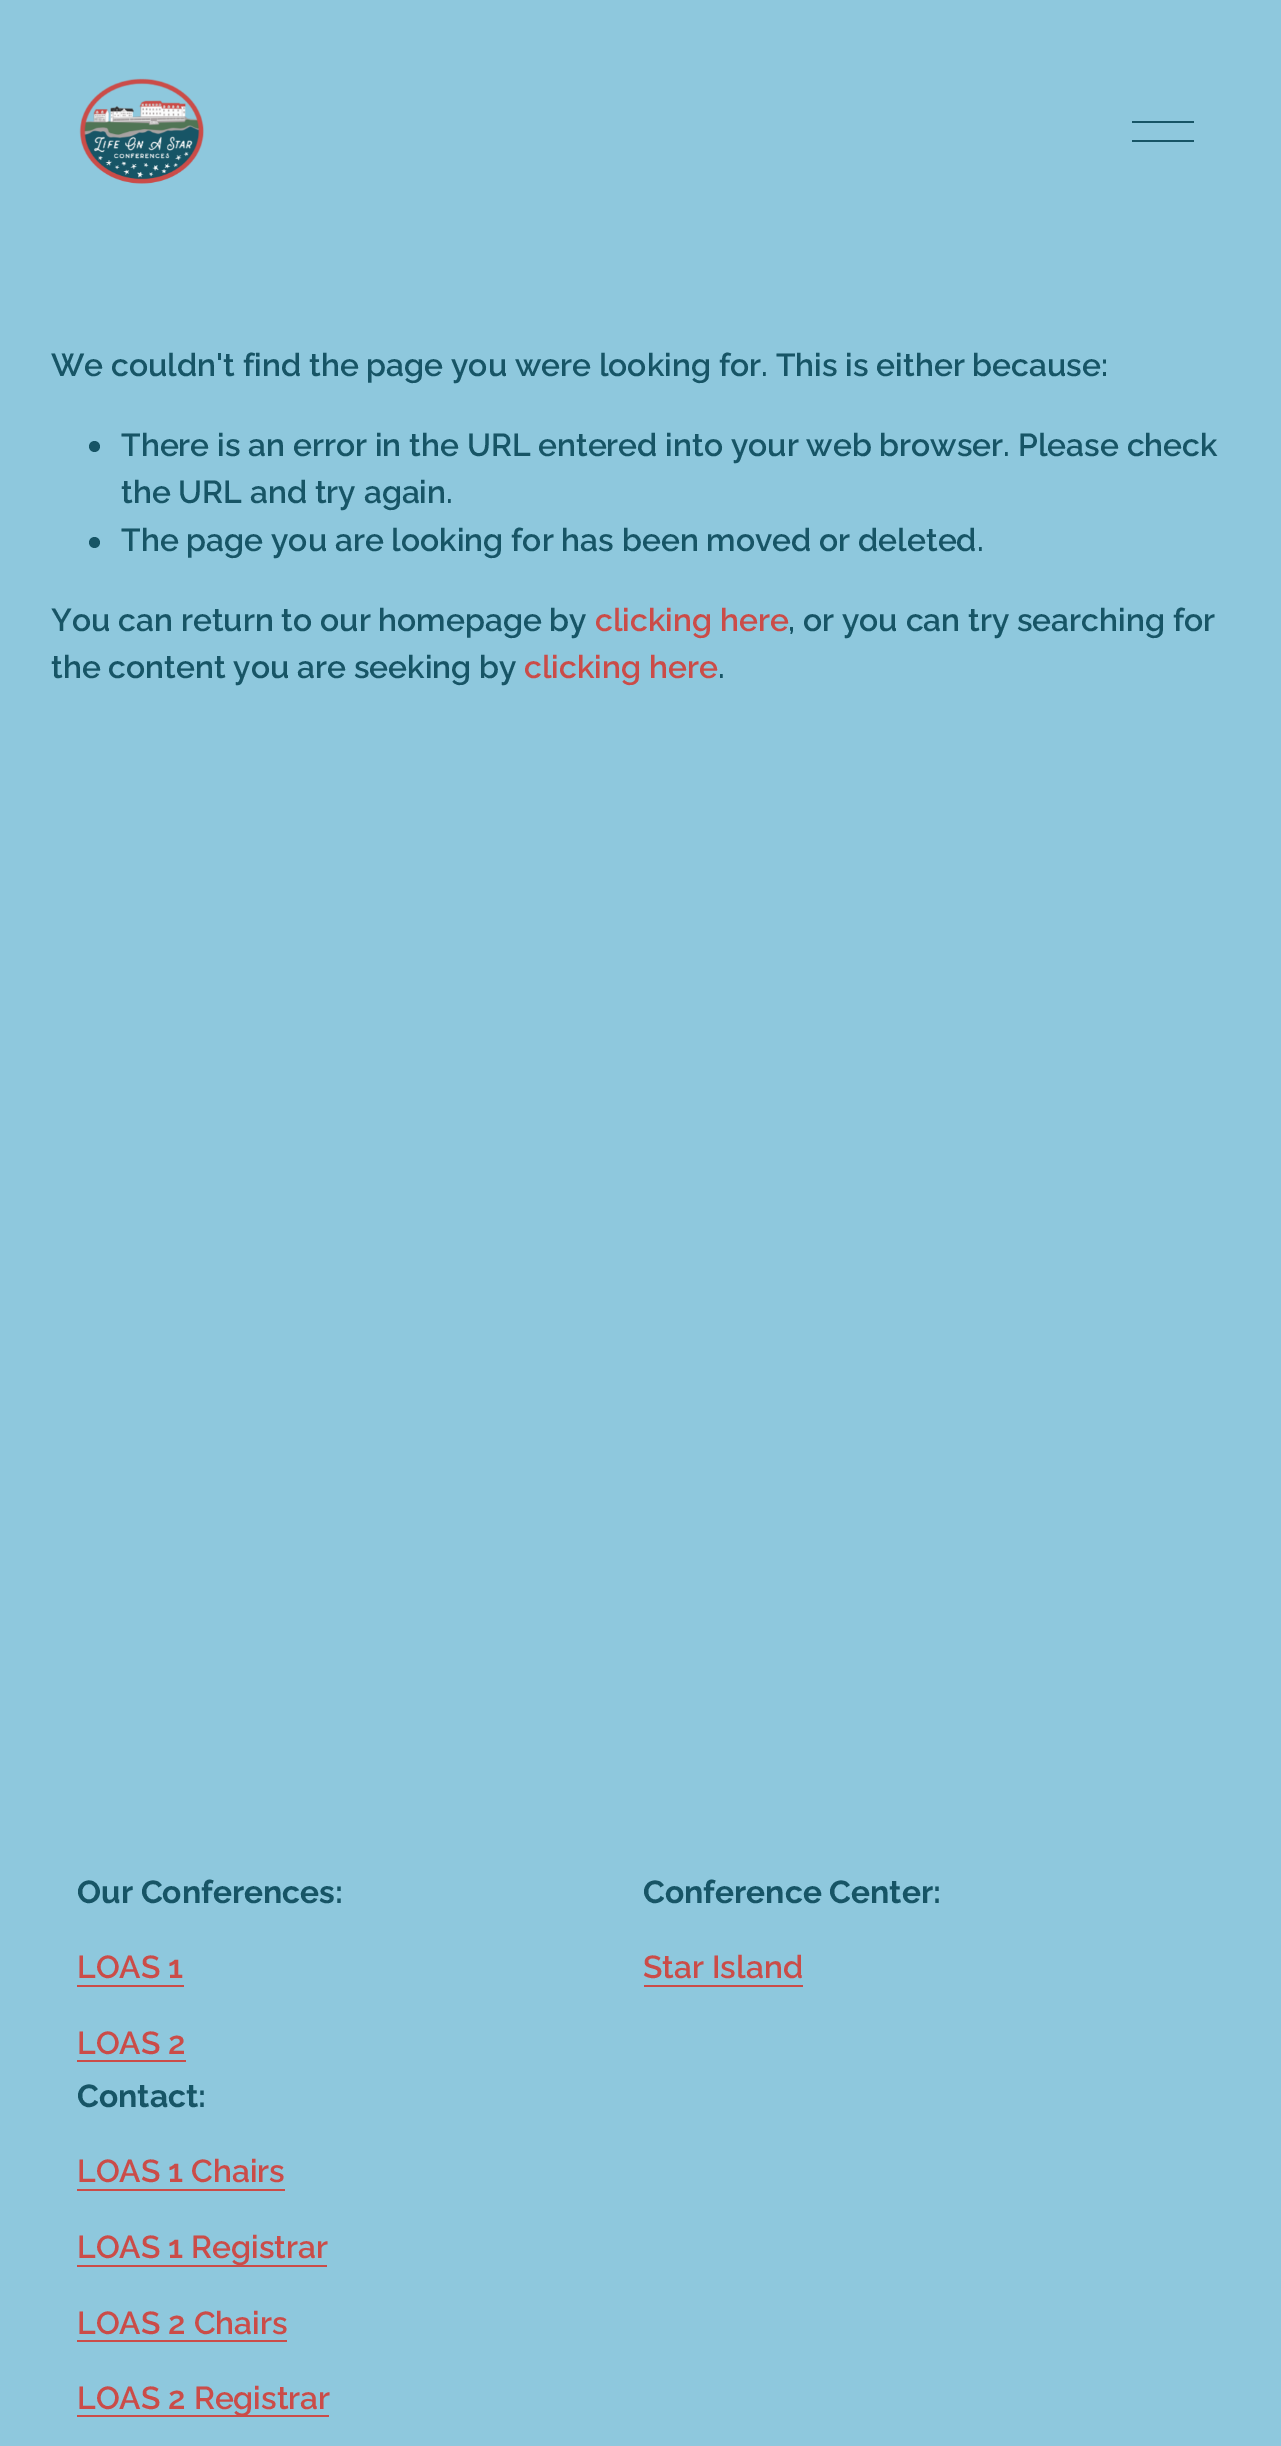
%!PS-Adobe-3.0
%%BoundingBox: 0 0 1281 2446
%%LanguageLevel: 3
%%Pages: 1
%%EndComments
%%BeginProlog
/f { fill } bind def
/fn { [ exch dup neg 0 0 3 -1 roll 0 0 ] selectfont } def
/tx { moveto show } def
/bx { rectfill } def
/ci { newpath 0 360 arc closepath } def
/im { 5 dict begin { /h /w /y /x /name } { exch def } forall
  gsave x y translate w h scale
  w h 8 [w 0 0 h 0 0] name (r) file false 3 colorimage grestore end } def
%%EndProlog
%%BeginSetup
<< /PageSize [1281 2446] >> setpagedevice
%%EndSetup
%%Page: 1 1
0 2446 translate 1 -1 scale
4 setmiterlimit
0.557 0.784 0.867 setrgbcolor
0 0 1281 2446 bx
(image0.raw) 79 78 125 106 im
0.09 0.333 0.4 setrgbcolor
1132 121 62 2 bx
1132 140 62 2 bx
/Raleway-SemiBold 31.8 fn
(We couldn't find the page you were looking for. This is either because:) 51 376 tx
94.5 446.5 5.5 ci f
(There is an error in the URL entered into your web browser. Please check) 121 456 tx
(the URL and try again.) 121 503 tx
94.5 542.5 5.5 ci f
(The page you are looking for has been moved or deleted.) 121 551 tx
(You can return to our homepage by) 51 631 tx
0.796 0.298 0.282 setrgbcolor
(clicking here) 595 631 tx
0.09 0.333 0.4 setrgbcolor
(, or you can try searching for) 788 631 tx
(the content you are seeking by) 51 678 tx
0.796 0.298 0.282 setrgbcolor
(clicking here) 524 678 tx
0.09 0.333 0.4 setrgbcolor
(.) 718 678 tx
/Raleway-Bold 31.8 fn
(Our Conferences:) 77 1903 tx
/Raleway-SemiBold 31.8 fn
0.796 0.298 0.282 setrgbcolor
(LOAS 1) 77 1978 tx
77 1985 107 2 bx
(LOAS 2) 77 2054 tx
77 2060 109 2 bx
/Raleway-Bold 31.8 fn
0.09 0.333 0.4 setrgbcolor
(Conference Center:) 643 1903 tx
/Raleway-SemiBold 31.8 fn
0.796 0.298 0.282 setrgbcolor
(Star Island) 643 1978 tx
644 1985 159 2 bx
/Raleway-Bold 31.8 fn
0.09 0.333 0.4 setrgbcolor
(Contact:) 77 2107 tx
/Raleway-SemiBold 31.8 fn
0.796 0.298 0.282 setrgbcolor
(LOAS 1 Chairs) 77 2182 tx
77 2189 208 2 bx
77 2265 250 2 bx
(LOAS 1 Registrar) 77 2258 tx
(LOAS 2 Chairs) 77 2334 tx
77 2340 210 2 bx
77 2415 252 2 bx
(LOAS 2 Registrar) 77 2409 tx
showpage
%%EOF
